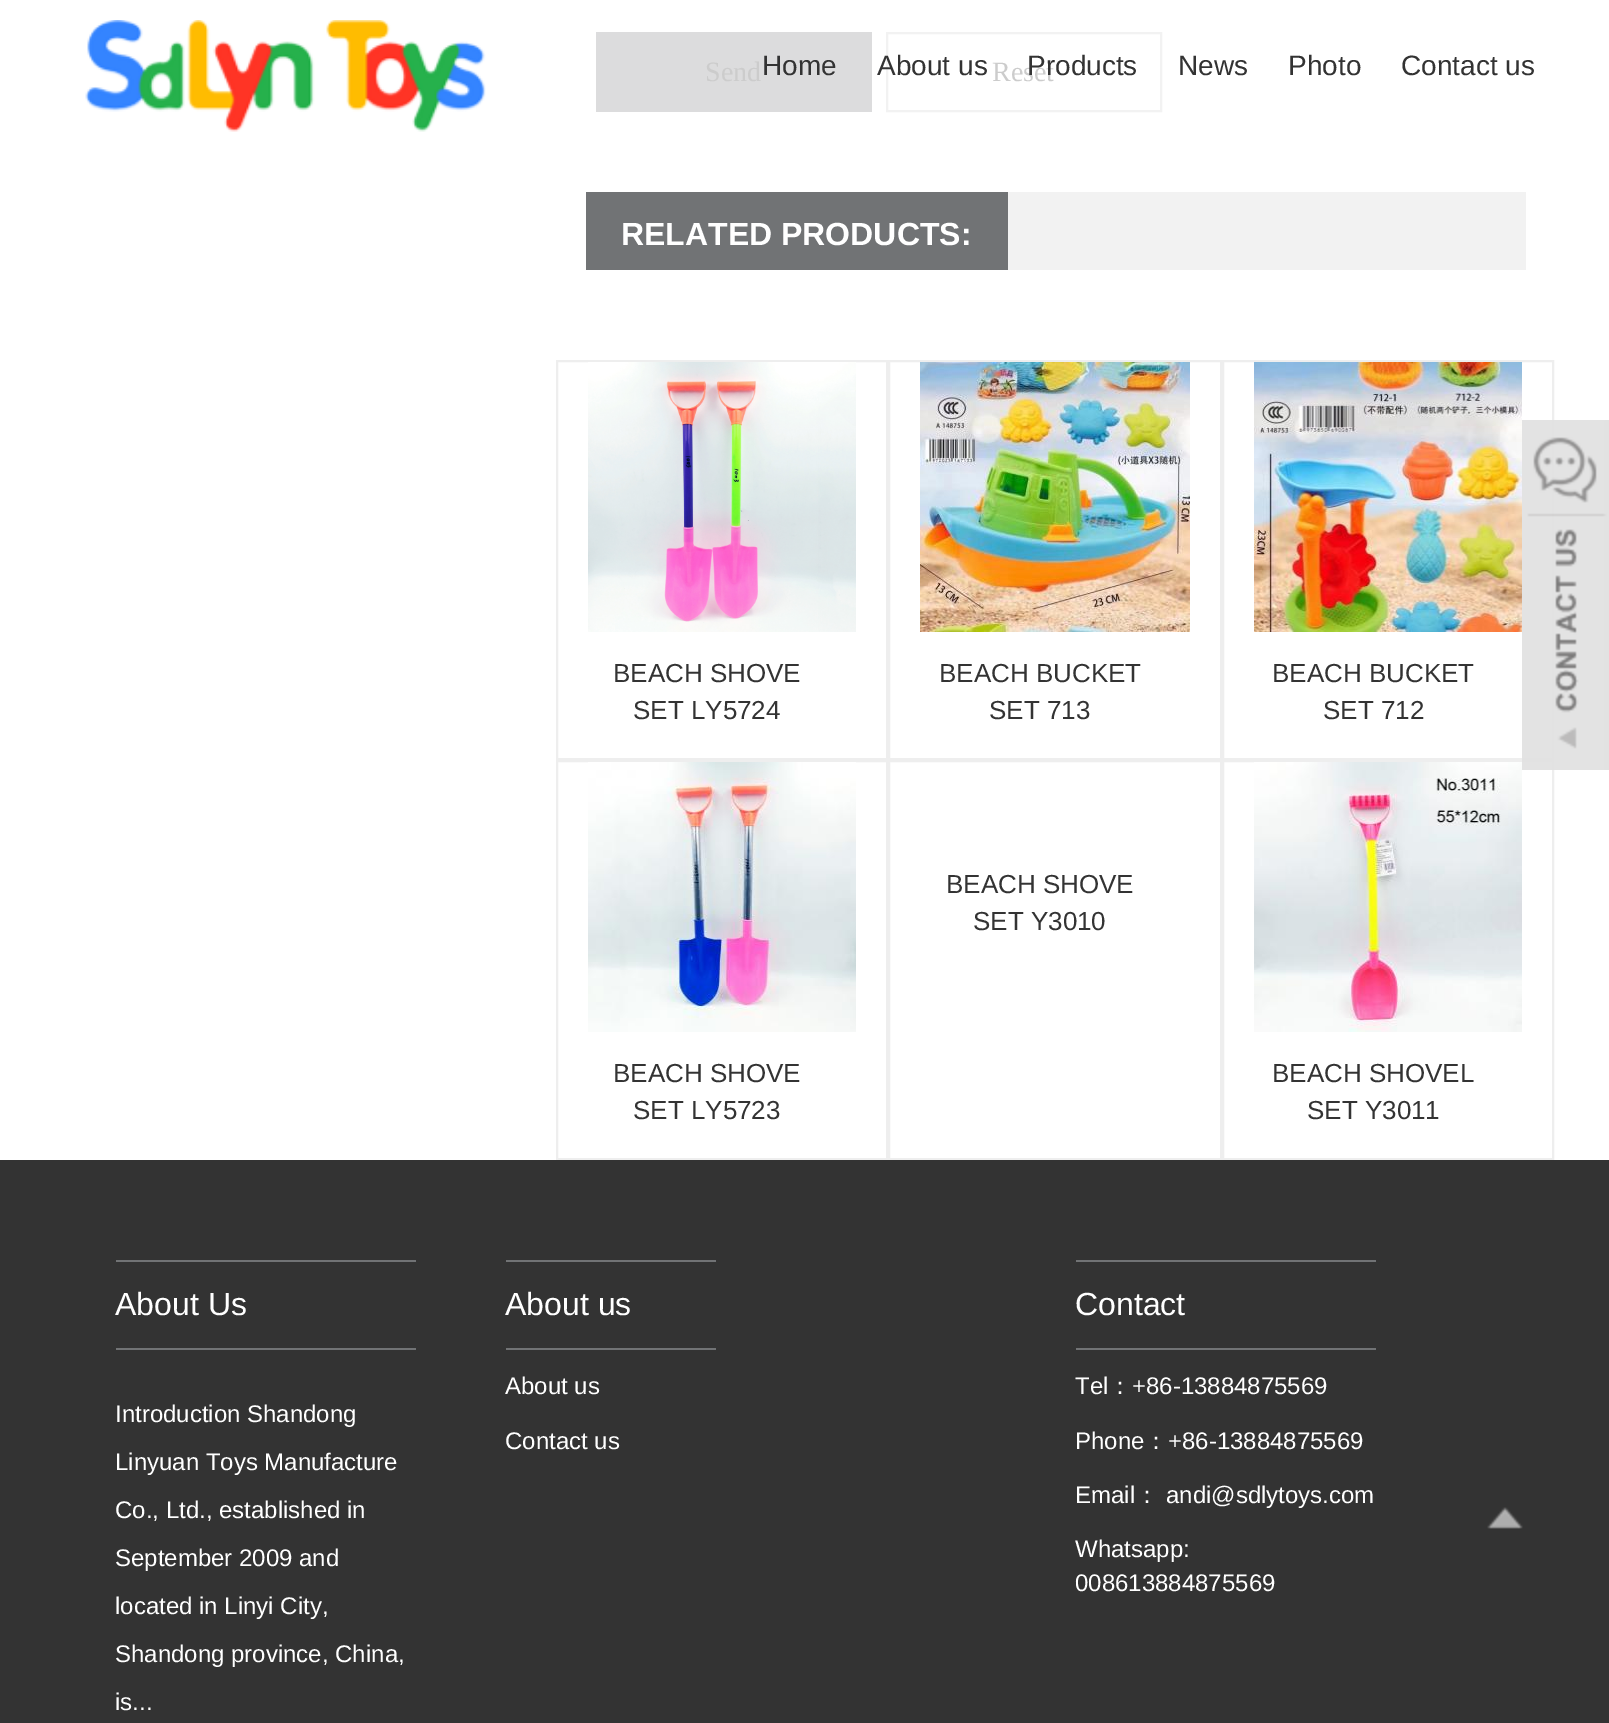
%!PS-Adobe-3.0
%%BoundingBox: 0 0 1609 1723
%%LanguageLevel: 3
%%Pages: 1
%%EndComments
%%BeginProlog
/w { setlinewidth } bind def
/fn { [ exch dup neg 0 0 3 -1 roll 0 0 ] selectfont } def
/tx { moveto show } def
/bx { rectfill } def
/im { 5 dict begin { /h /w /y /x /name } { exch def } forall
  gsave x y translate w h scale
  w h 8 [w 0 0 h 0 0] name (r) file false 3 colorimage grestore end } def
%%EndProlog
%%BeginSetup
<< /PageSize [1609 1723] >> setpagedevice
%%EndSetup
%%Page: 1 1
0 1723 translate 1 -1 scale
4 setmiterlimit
1 setgray
0 0 1609 1723 bx
(image0.raw) 85 20 401 112 im
0.863 0.863 0.867 setrgbcolor
596 32 276 80 bx
/LiberationSans-Regular 28 fn
0.2 setgray
(Home) 762 75 tx
0.949 setgray
2 w
887 33 274 78 rectstroke
0.2 setgray
(About us) 877 75 tx
/LiberationSerif-Regular 28 fn
0.8 setgray
(Reset) 992 81 tx
/LiberationSans-Regular 28 fn
0.2 setgray
(Products) 1027 75 tx
(News) 1178 75 tx
(Photo) 1288 75 tx
(Contact us) 1401 75 tx
/LiberationSerif-Regular 28 fn
0.8 setgray
(Send) 705 81 tx
0.949 setgray
1008 192 518 78 bx
0.443 0.451 0.459 setrgbcolor
586 192 422 78 bx
/LiberationSans-Bold 32 fn
1 setgray
(RELATED PRODUCTS:) 621 245 tx
0.933 setgray
557 361 330 398 rectstroke
(image1.raw) 588 362 268 270 im
/LiberationSans-Regular 26 fn
0.2 setgray
(BEACH SHOVE) 613 682 tx
(SET LY5724) 633 719 tx
0.933 setgray
889 361 332 398 rectstroke
(image2.raw) 920 362 270 270 im
0.2 setgray
(BEACH BUCKET) 939 682 tx
(SET 713) 989 719 tx
0.933 setgray
1223 361 330 398 rectstroke
(image3.raw) 1254 362 268 270 im
0.2 setgray
(BEACH BUCKET) 1272 682 tx
(SET 712) 1323 719 tx
0.933 setgray
889 761 332 398 rectstroke
0.2 setgray
(BEACH SHOVE) 946 893 tx
(SET Y3010) 973 930 tx
0.933 setgray
557 761 330 398 rectstroke
(image4.raw) 588 762 268 270 im
0.2 setgray
(BEACH SHOVE) 613 1082 tx
(SET LY5723) 633 1119 tx
0.933 setgray
1223 761 330 398 rectstroke
(image5.raw) 1254 762 268 270 im
0.2 setgray
(BEACH SHOVEL) 1272 1082 tx
(SET Y3011) 1307 1119 tx
(image6.raw) 1522 420 87 350 im
0 1160 1609 563 bx
0.443 0.451 0.459 setrgbcolor
116 1260 300 2 bx
116 1348 300 2 bx
/LiberationSans-Regular 32 fn
1 setgray
(About Us) 115 1315 tx
/LiberationSans-Regular 24 fn
(Introduction Shandong) 115 1422 tx
(Linyuan Toys Manufacture) 115 1470 tx
(Co., Ltd., established in) 115 1518 tx
(September 2009 and) 115 1566 tx
(located in Linyi City,) 115 1614 tx
(Shandong province, China,) 115 1662 tx
(is...) 115 1710 tx
0.443 0.451 0.459 setrgbcolor
506 1260 210 2 bx
506 1348 210 2 bx
/LiberationSans-Regular 32 fn
1 setgray
(About us) 505 1315 tx
/LiberationSans-Regular 24 fn
(About us) 505 1394 tx
(Contact us) 505 1449 tx
0.443 0.451 0.459 setrgbcolor
1076 1260 300 2 bx
1076 1348 300 2 bx
/LiberationSans-Regular 32 fn
1 setgray
(Contact) 1075 1315 tx
/LiberationSans-Regular 24 fn
(Tel) 1075 1394 tx
/WenQuanYiZenHei-Medium 24 fn
(：) 1108 1394 tx
/LiberationSans-Regular 24 fn
(+86-13884875569) 1132 1394 tx
(Phone) 1075 1449 tx
/WenQuanYiZenHei-Medium 24 fn
(：) 1144 1449 tx
/LiberationSans-Regular 24 fn
(+86-13884875569) 1168 1449 tx
(Email) 1075 1503 tx
/WenQuanYiZenHei-Medium 24 fn
(：) 1135 1503 tx
/LiberationSans-Regular 24 fn
(andi@sdlytoys.com) 1166 1503 tx
(Whatsapp:) 1075 1557 tx
(008613884875569) 1075 1591 tx
(image7.raw) 1487 1507 36 22 im
showpage
%%EOF
